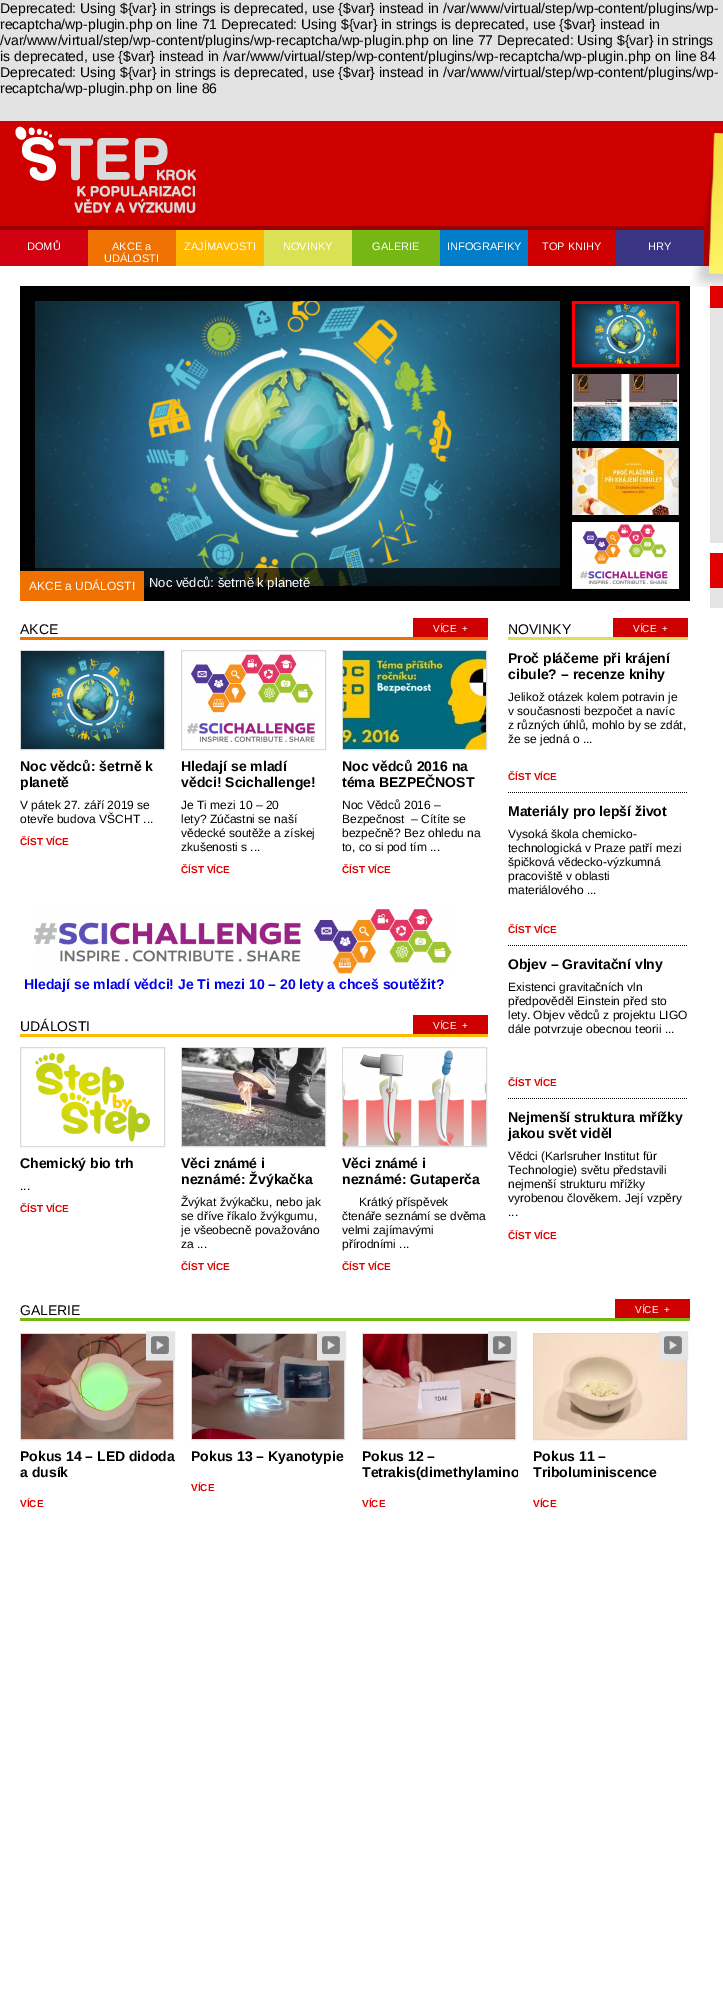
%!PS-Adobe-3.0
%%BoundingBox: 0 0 723 2004
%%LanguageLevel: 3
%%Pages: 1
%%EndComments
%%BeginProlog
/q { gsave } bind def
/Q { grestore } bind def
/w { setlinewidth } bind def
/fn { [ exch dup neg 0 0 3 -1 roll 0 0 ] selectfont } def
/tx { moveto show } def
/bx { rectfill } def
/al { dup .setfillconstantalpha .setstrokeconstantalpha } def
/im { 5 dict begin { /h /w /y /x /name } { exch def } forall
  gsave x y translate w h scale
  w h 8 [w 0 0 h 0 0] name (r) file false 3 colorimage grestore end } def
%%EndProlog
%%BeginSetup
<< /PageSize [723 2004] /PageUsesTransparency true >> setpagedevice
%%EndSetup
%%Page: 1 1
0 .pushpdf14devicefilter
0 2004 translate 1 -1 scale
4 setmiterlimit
0.89 setgray
0 0 723 2004 bx
/LiberationSans-Regular 14 fn
0 setgray
(Deprecated: Using ${var} in strings is deprecated, use {$var} instead in /var/www/virtual/step/wp-content/plugins/wp-) 0 13 tx
(recaptcha/wp-plugin.php on line 71 Deprecated: Using ${var} in strings is deprecated, use {$var} instead in) 0 29 tx
(/var/www/virtual/step/wp-content/plugins/wp-recaptcha/wp-plugin.php on line 77 Deprecated: Using ${var} in strings) 0 45 tx
(is deprecated, use {$var} instead in /var/www/virtual/step/wp-content/plugins/wp-recaptcha/wp-plugin.php on line 84) 0 61 tx
(Deprecated: Using ${var} in strings is deprecated, use {$var} instead in /var/www/virtual/step/wp-content/plugins/wp-) 0 77 tx
(recaptcha/wp-plugin.php on line 86) 0 93 tx
1 setgray
0 266 723 1738 bx
0.812 0 0 setrgbcolor
0 121 723 145 bx
(image0.raw) 15 126 181 87 im
(image1.raw) 692 133 31 154 im
0.824 0.004 0.071 setrgbcolor
0 230 88 36 bx
0.6 0 0 setrgbcolor
0 226 704 4 bx
/LiberationSans-Regular 11 fn
1 setgray
(DOMŮ) 27 250 tx
0.933 0.443 0.004 setrgbcolor
88 230 88 36 bx
1 setgray
(AKCE a) 112 250 tx
(UDÁLOSTI) 104 262 tx
1 0.718 0 setrgbcolor
176 230 88 36 bx
1 setgray
(ZAJÍMAVOSTI) 184 250 tx
0.859 0.882 0.329 setrgbcolor
264 230 88 36 bx
1 setgray
(NOVINKY) 283 250 tx
0.463 0.718 0.082 setrgbcolor
352 230 88 36 bx
1 setgray
(GALERIE) 372 250 tx
0.004 0.49 0.788 setrgbcolor
440 230 88 36 bx
1 setgray
(INFOGRAFIKY) 447 250 tx
(TOP KNIHY) 542 250 tx
0.224 0.204 0.518 setrgbcolor
616 230 88 36 bx
1 setgray
(HRY) 648 250 tx
0.894 setgray
710 308 13 235 bx
0.875 0 0 setrgbcolor
710 286 13 22 bx
0.894 setgray
710 588 13 20 bx
0.875 0 0 setrgbcolor
710 553 13 35 bx
0 setgray
20 286 670 315 bx
(image2.raw) 35 301 525 285 im
0.7 al
35 568 525 18 bx
1 al
0.933 0.443 0.004 setrgbcolor
20 571 124 30 bx
/LiberationSans-Regular 12 fn
1 setgray
(AKCE a UDÁLOSTI) 29 590 tx
/LiberationSans-Regular 13 fn
(Noc vědců: šetrně k planetě) 149 587 tx
0.996 0 0 setrgbcolor
3 w
573.5 302.5 104 63 rectstroke
(image3.raw) 575 304 101 60 im
(image4.raw) 572 374 107 67 im
(image5.raw) 572 448 107 67 im
(image6.raw) 572 522 107 67 im
0.933 0.443 0.004 setrgbcolor
20 637 468 3 bx
/LiberationSans-Regular 14 fn
0 setgray
(AKCE) 20 634 tx
0.812 0 0 setrgbcolor
413 618 75 19 bx
/LiberationSans-Regular 10 fn
1 setgray
(VÍCE  +) 433 632 tx
0.851 0.855 0.859 setrgbcolor
1 w
20.5 650.5 144 99 rectstroke
(image7.raw) 21 651 143 98 im
/LiberationSans-Bold 14 fn
0 setgray
(Noc vědců: šetrně k) 20 771 tx
(planetě) 20 787 tx
/LiberationSans-Regular 12 fn
(V pátek 27. září 2019 se) 20 809 tx
(otevře budova VŠCHT ...) 20 823 tx
/LiberationSans-Bold 10 fn
0.875 0 0 setrgbcolor
(ČÍST VÍCE) 20 845 tx
0.851 0.855 0.859 setrgbcolor
181.5 650.5 144 99 rectstroke
(image8.raw) 187 654 128 88 im
/LiberationSans-Bold 14 fn
0 setgray
(Hledají se mladí) 181 771 tx
(vědci! Scichallenge!) 181 787 tx
/LiberationSans-Regular 12 fn
(Je Ti mezi 10 – 20) 181 809 tx
(lety? Zúčastni se naší) 181 823 tx
(vědecké soutěže a získej) 181 837 tx
(zkušenosti s ...) 181 851 tx
/LiberationSans-Bold 10 fn
0.875 0 0 setrgbcolor
(ČÍST VÍCE) 181 873 tx
0.851 0.855 0.859 setrgbcolor
342.5 650.5 144 99 rectstroke
(image9.raw) 343 651 143 98 im
/LiberationSans-Bold 14 fn
0 setgray
(Noc vědců 2016 na) 342 771 tx
(téma BEZPEČNOST) 342 787 tx
/LiberationSans-Regular 12 fn
(Noc Vědců 2016 –) 342 809 tx
(Bezpečnost  – Cítíte se) 342 823 tx
(bezpečně? Bez ohledu na) 342 837 tx
(to, co si pod tím ...) 342 851 tx
/LiberationSans-Bold 10 fn
0.875 0 0 setrgbcolor
(ČÍST VÍCE) 342 873 tx
(image10.raw) 34 909 418 65 im
/LiberationSans-Bold 14 fn
0 0 0.933 setrgbcolor
(Hledají se mladí vědci! Je Ti mezi 10 – 20 lety a chceš soutěžit?) 24 989 tx
1 0.718 0 setrgbcolor
20 1034 468 3 bx
/LiberationSans-Regular 14 fn
0 setgray
(UDÁLOSTI) 20 1031 tx
0.812 0 0 setrgbcolor
413 1015 75 19 bx
/LiberationSans-Regular 10 fn
1 setgray
(VÍCE  +) 433 1029 tx
0.851 0.855 0.859 setrgbcolor
20.5 1047.5 144 99 rectstroke
(image11.raw) 35 1052 115 90 im
/LiberationSans-Bold 14 fn
0 setgray
(Chemický bio trh) 20 1168 tx
/LiberationSans-Regular 12 fn
(...) 20 1190 tx
/LiberationSans-Bold 10 fn
0.875 0 0 setrgbcolor
(ČÍST VÍCE) 20 1212 tx
0.851 0.855 0.859 setrgbcolor
181.5 1047.5 144 99 rectstroke
(image12.raw) 182 1048 143 98 im
/LiberationSans-Bold 14 fn
0 setgray
(Věci známé i) 181 1168 tx
(neznámé: Žvýkačka) 181 1184 tx
/LiberationSans-Regular 12 fn
(Žvýkat žvýkačku, nebo jak) 181 1206 tx
(se dříve říkalo žvýkgumu,) 181 1220 tx
(je všeobecně považováno) 181 1234 tx
(za ...) 181 1248 tx
/LiberationSans-Bold 10 fn
0.875 0 0 setrgbcolor
(ČÍST VÍCE) 181 1270 tx
0.851 0.855 0.859 setrgbcolor
342.5 1047.5 144 99 rectstroke
(image13.raw) 343 1050 143 96 im
/LiberationSans-Bold 14 fn
0 setgray
(Věci známé i) 342 1168 tx
(neznámé: Gutaperča) 342 1184 tx
/LiberationSans-Regular 12 fn
(Krátký příspěvek) 359 1206 tx
(čtenáře seznámí se dvěma) 342 1220 tx
(velmi zajímavými) 342 1234 tx
(přírodními ...) 342 1248 tx
/LiberationSans-Bold 10 fn
0.875 0 0 setrgbcolor
(ČÍST VÍCE) 342 1270 tx
0.859 0.882 0.329 setrgbcolor
508 637 180 3 bx
/LiberationSans-Regular 14 fn
0 setgray
(NOVINKY) 508 634 tx
0.812 0 0 setrgbcolor
613 618 75 19 bx
/LiberationSans-Regular 10 fn
1 setgray
(VÍCE  +) 633 632 tx
/LiberationSans-Bold 14 fn
0 setgray
(Proč pláčeme při krájení) 508 663 tx
(cibule? – recenze knihy) 508 679 tx
/LiberationSans-Regular 12 fn
(Jelikož otázek kolem potravin je) 508 701 tx
(v současnosti bezpočet a navíc) 508 715 tx
(z různých úhlů, mohlo by se zdát,) 508 729 tx
(že se jedná o ...) 508 743 tx
/LiberationSans-Bold 10 fn
0.875 0 0 setrgbcolor
(ČÍST VÍCE) 508 780 tx
(image14.raw) 508 792 179 1 im
/LiberationSans-Bold 14 fn
0 setgray
(Materiály pro lepší život) 508 816 tx
/LiberationSans-Regular 12 fn
(Vysoká škola chemicko-) 508 838 tx
(technologická v Praze patří mezi) 508 852 tx
(špičková vědecko-výzkumná) 508 866 tx
(pracoviště v oblasti) 508 880 tx
(materiálového ...) 508 894 tx
/LiberationSans-Bold 10 fn
0.875 0 0 setrgbcolor
(ČÍST VÍCE) 508 933 tx
(image14.raw) 508 945 179 1 im
/LiberationSans-Bold 14 fn
0 setgray
(Objev – Gravitační vlny) 508 969 tx
/LiberationSans-Regular 12 fn
(Existenci gravitačních vln) 508 991 tx
(předpověděl Einstein před sto) 508 1005 tx
(lety. Objev vědců z projektu LIGO) 508 1019 tx
(dále potvrzuje obecnou teorii ...) 508 1033 tx
/LiberationSans-Bold 10 fn
0.875 0 0 setrgbcolor
(ČÍST VÍCE) 508 1086 tx
(image14.raw) 508 1098 179 1 im
/LiberationSans-Bold 14 fn
0 setgray
(Nejmenší struktura mřížky) 508 1122 tx
(jakou svět viděl) 508 1138 tx
/LiberationSans-Regular 12 fn
(Vědci \(Karlsruher Institut für) 508 1160 tx
(Technologie\) světu představili) 508 1174 tx
(nejmenší strukturu mřížky) 508 1188 tx
(vyrobenou člověkem. Její vzpěry) 508 1202 tx
(...) 508 1216 tx
/LiberationSans-Bold 10 fn
0.875 0 0 setrgbcolor
(ČÍST VÍCE) 508 1239 tx
0.463 0.718 0.082 setrgbcolor
20 1318 670 3 bx
/LiberationSans-Regular 14 fn
0 setgray
(GALERIE) 20 1315 tx
0.812 0 0 setrgbcolor
615 1299 75 19 bx
/LiberationSans-Regular 10 fn
1 setgray
(VÍCE  +) 635 1313 tx
0.851 0.855 0.859 setrgbcolor
20.5 1333.5 153 106 rectstroke
(image16.raw) 21 1334 152 105 im
(image15.raw) 146 1331 30 30 im
/LiberationSans-Bold 14 fn
0 setgray
(Pokus 14 – LED didoda) 20 1461 tx
(a dusík) 20 1477 tx
/LiberationSans-Bold 10 fn
0.875 0 0 setrgbcolor
(VÍCE) 20 1507 tx
0.851 0.855 0.859 setrgbcolor
191.5 1333.5 153 106 rectstroke
(image18.raw) 192 1334 152 105 im
(image17.raw) 317 1331 30 30 im
/LiberationSans-Bold 14 fn
0 setgray
(Pokus 13 – Kyanotypie) 191 1461 tx
/LiberationSans-Bold 10 fn
0.875 0 0 setrgbcolor
(VÍCE) 191 1491 tx
0.851 0.855 0.859 setrgbcolor
362.5 1333.5 153 106 rectstroke
(image20.raw) 363 1334 152 105 im
(image19.raw) 488 1331 30 30 im
/LiberationSans-Bold 14 fn
0 setgray
(Pokus 12 –) 362 1461 tx
q
362 1448 156 32 rectclip
(Tetrakis\(dimethylamino) 362 1477 tx
Q
/LiberationSans-Bold 10 fn
0.875 0 0 setrgbcolor
(VÍCE) 362 1507 tx
0.851 0.855 0.859 setrgbcolor
533.5 1333.5 153 106 rectstroke
(image22.raw) 534 1334 152 105 im
(image21.raw) 659 1331 30 30 im
/LiberationSans-Bold 14 fn
0 setgray
(Pokus 11 –) 533 1461 tx
(Triboluminiscence) 533 1477 tx
/LiberationSans-Bold 10 fn
0.875 0 0 setrgbcolor
(VÍCE) 533 1507 tx
.poppdf14devicefilter showpage
%%EOF
